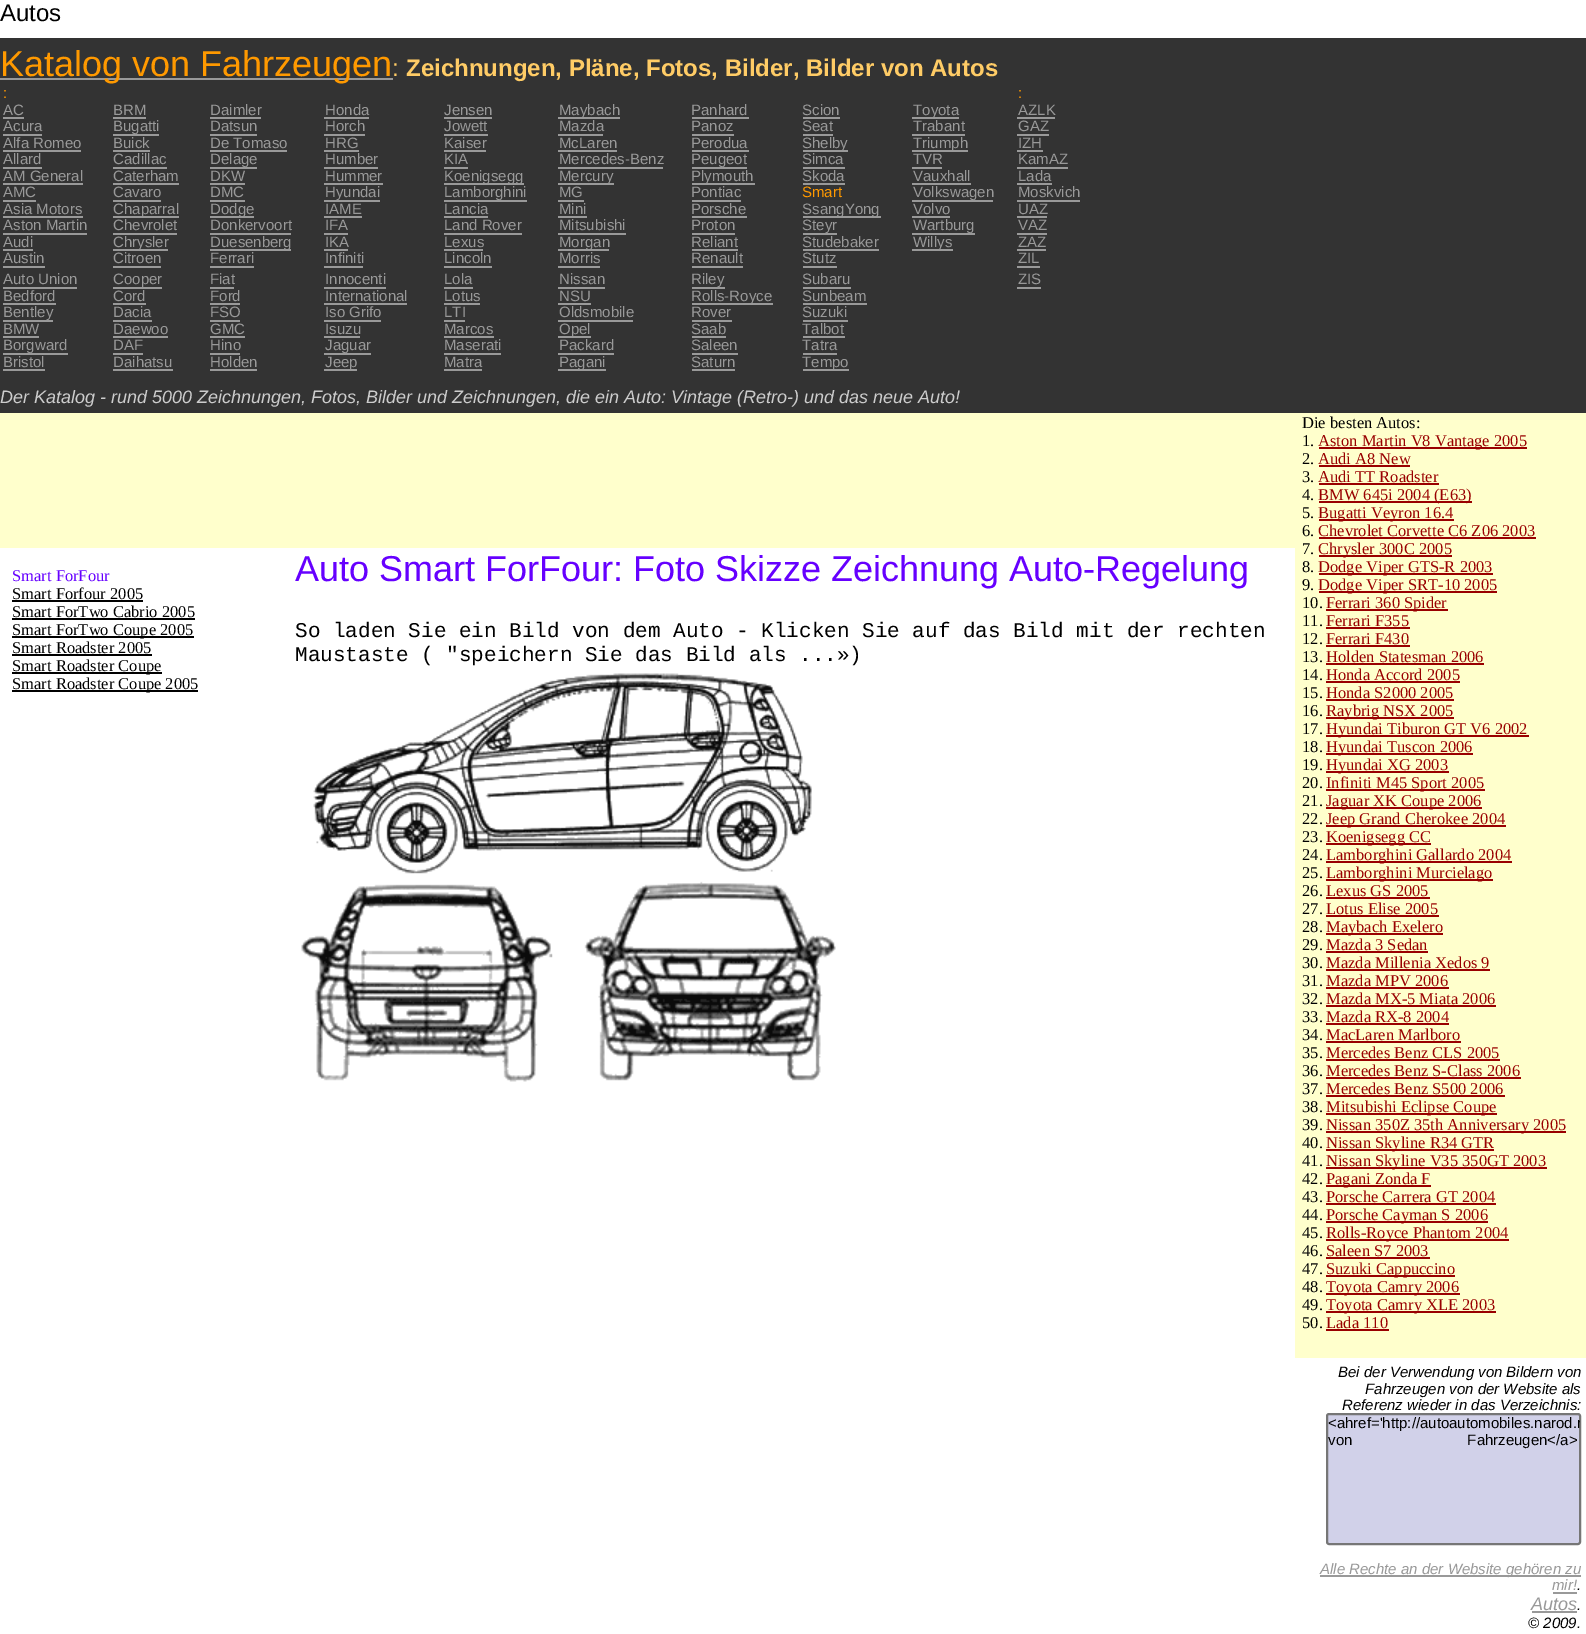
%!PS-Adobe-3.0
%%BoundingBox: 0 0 1586 1634
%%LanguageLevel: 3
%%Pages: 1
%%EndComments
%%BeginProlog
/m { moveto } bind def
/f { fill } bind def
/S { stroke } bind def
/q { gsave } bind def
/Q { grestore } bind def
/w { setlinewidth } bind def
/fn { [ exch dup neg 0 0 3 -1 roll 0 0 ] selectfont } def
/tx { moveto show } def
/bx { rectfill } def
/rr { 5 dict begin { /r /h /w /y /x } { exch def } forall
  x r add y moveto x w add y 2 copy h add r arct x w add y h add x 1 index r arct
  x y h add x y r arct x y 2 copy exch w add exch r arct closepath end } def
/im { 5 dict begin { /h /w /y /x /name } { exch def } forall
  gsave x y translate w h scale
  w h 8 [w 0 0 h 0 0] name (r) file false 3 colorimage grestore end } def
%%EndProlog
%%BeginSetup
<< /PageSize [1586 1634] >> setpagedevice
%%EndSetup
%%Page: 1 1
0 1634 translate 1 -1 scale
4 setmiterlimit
1 setgray
0 0 1586 1634 bx
/LiberationSans-Regular 24 fn
0 setgray
(Autos) 0 21 tx
0.2 setgray
0 38 1586 375 bx
0.6 setgray
0 78 393 2 bx
/LiberationSans-Regular 36 fn
1 0.6 0 setrgbcolor
(Katalog von Fahrzeugen) 0 76 tx
/LiberationSans-Regular 24 fn
1 0.8 0.4 setrgbcolor
(:) 392 76 tx
/LiberationSans-Bold 24 fn
(Zeichnungen, Pläne, Fotos, Bilder, Bilder von Autos) 406 76 tx
/LiberationSans-Regular 15 fn
1 0.6 0 setrgbcolor
(:) 3 98 tx
(:) 1018 98 tx
0.6 setgray
(AC) 3 115 tx
3 117 21 2 bx
(BRM) 113 115 tx
113 117 33 2 bx
(Daimler) 210 115 tx
210 117 51 2 bx
(Honda) 325 115 tx
324 117 45 2 bx
(Jensen) 444 115 tx
444 117 48 2 bx
558 117 62 2 bx
(Maybach) 559 115 tx
(Panhard) 691 115 tx
692 117 57 2 bx
(Scion) 802 115 tx
803 117 37 2 bx
912 117 47 2 bx
(Toyota) 913 115 tx
(AZLK) 1018 115 tx
1017 117 38 2 bx
(Acura) 3 131 tx
3 134 39 2 bx
113 134 46 2 bx
(Bugatti) 113 131 tx
(Datsun) 210 131 tx
210 134 47 2 bx
(Horch) 325 131 tx
324 134 41 2 bx
(Jowett) 444 131 tx
444 134 44 2 bx
(Mazda) 559 131 tx
558 134 45 2 bx
(Panoz) 691 131 tx
692 134 42 2 bx
(Seat) 802 131 tx
803 134 30 2 bx
(Trabant) 913 131 tx
912 134 53 2 bx
(GAZ) 1018 131 tx
1017 134 32 2 bx
(Alfa Romeo) 3 148 tx
3 150 78 2 bx
(Buick) 113 148 tx
113 150 37 2 bx
(De Tomaso) 210 148 tx
210 150 77 2 bx
(HRG) 325 148 tx
324 150 35 2 bx
(Kaiser) 444 148 tx
444 150 42 2 bx
(McLaren) 559 148 tx
558 150 59 2 bx
(Perodua) 691 148 tx
692 150 57 2 bx
803 150 45 2 bx
(Shelby) 802 148 tx
912 150 56 2 bx
(Triumph) 913 148 tx
(IZH) 1018 148 tx
1017 150 26 2 bx
(Allard) 3 164 tx
3 167 39 2 bx
(Cadillac) 113 164 tx
113 167 54 2 bx
210 167 47 2 bx
(Delage) 210 164 tx
(Humber) 325 164 tx
324 167 54 2 bx
(KIA) 444 164 tx
444 167 24 2 bx
(Mercedes-Benz) 559 164 tx
558 167 105 2 bx
692 167 55 2 bx
(Peugeot) 691 164 tx
(Simca) 802 164 tx
803 167 42 2 bx
(TVR) 913 164 tx
912 167 30 2 bx
(KamAZ) 1018 164 tx
1017 167 51 2 bx
(AM General) 3 181 tx
3 183 80 2 bx
(Caterham) 113 181 tx
113 183 66 2 bx
(DKW) 210 181 tx
210 183 35 2 bx
(Hummer) 325 181 tx
324 183 59 2 bx
444 183 80 2 bx
(Koenigsegg) 444 181 tx
558 183 56 2 bx
(Mercury) 559 181 tx
692 183 63 2 bx
(Plymouth) 691 181 tx
(Skoda) 802 181 tx
803 183 42 2 bx
(Vauxhall) 913 181 tx
912 183 59 2 bx
(Lada) 1018 181 tx
1017 183 35 2 bx
(AMC) 3 197 tx
3 200 33 2 bx
(Cavaro) 113 197 tx
113 200 48 2 bx
(DMC) 210 197 tx
210 200 35 2 bx
324 200 56 2 bx
(Hyundai) 325 197 tx
444 200 83 2 bx
(Lamborghini) 444 197 tx
(MG) 559 197 tx
558 200 26 2 bx
(Pontiac) 691 197 tx
692 200 49 2 bx
1 0.6 0 setrgbcolor
(Smart) 802 197 tx
0.6 setgray
912 200 81 2 bx
(Volkswagen) 913 197 tx
(Moskvich) 1018 197 tx
1017 200 63 2 bx
(Asia Motors) 3 214 tx
3 216 80 2 bx
113 216 66 2 bx
(Chaparral) 113 214 tx
210 216 44 2 bx
(Dodge) 210 214 tx
(IAME) 325 214 tx
324 216 38 2 bx
(Lancia) 444 214 tx
444 216 44 2 bx
(Mini) 559 214 tx
558 216 29 2 bx
(Porsche) 691 214 tx
692 216 55 2 bx
803 216 78 2 bx
(SsangYong) 802 214 tx
(Volvo) 913 214 tx
912 216 38 2 bx
(UAZ) 1018 214 tx
1017 216 30 2 bx
(Aston Martin) 3 230 tx
3 233 84 2 bx
(Chevrolet) 113 230 tx
113 233 64 2 bx
(Donkervoort) 210 230 tx
210 233 81 2 bx
(IFA) 325 230 tx
324 233 24 2 bx
(Land Rover) 444 230 tx
444 233 78 2 bx
(Mitsubishi) 559 230 tx
558 233 68 2 bx
(Proton) 691 230 tx
692 233 43 2 bx
803 233 34 2 bx
(Steyr) 802 230 tx
912 233 63 2 bx
(Wartburg) 913 230 tx
(VAZ) 1018 230 tx
1017 233 30 2 bx
(Audi) 3 247 tx
3 249 30 2 bx
113 249 55 2 bx
(Chrysler) 113 247 tx
210 249 81 2 bx
(Duesenberg) 210 247 tx
(IKA) 325 247 tx
324 249 24 2 bx
(Lexus) 444 247 tx
444 249 39 2 bx
558 249 51 2 bx
(Morgan) 559 247 tx
(Reliant) 691 247 tx
692 249 46 2 bx
(Studebaker) 802 247 tx
803 249 76 2 bx
912 249 41 2 bx
(Willys) 913 247 tx
(ZAZ) 1018 247 tx
1017 249 29 2 bx
(Austin) 3 263 tx
3 266 42 2 bx
(Citroen) 113 263 tx
113 266 48 2 bx
(Ferrari) 210 263 tx
210 266 44 2 bx
(Infiniti) 325 263 tx
324 266 39 2 bx
(Lincoln) 444 263 tx
444 266 48 2 bx
(Morris) 559 263 tx
558 266 42 2 bx
(Renault) 691 263 tx
692 266 51 2 bx
(Stutz) 802 263 tx
803 266 34 2 bx
(ZIL) 1018 263 tx
1017 266 23 2 bx
(Auto Union) 3 284 tx
3 287 74 2 bx
113 287 49 2 bx
(Cooper) 113 284 tx
(Fiat) 210 284 tx
210 287 24 2 bx
(Innocenti) 325 284 tx
324 287 62 2 bx
(Lola) 444 284 tx
444 287 29 2 bx
(Nissan) 559 284 tx
558 287 47 2 bx
692 287 33 2 bx
(Riley) 691 284 tx
(Subaru) 802 284 tx
803 287 48 2 bx
(ZIS) 1018 284 tx
1017 287 24 2 bx
(Bedford) 3 301 tx
3 303 53 2 bx
(Cord) 113 301 tx
113 303 33 2 bx
(Ford) 210 301 tx
210 303 30 2 bx
(International) 325 301 tx
324 303 83 2 bx
(Lotus) 444 301 tx
444 303 36 2 bx
(NSU) 559 301 tx
558 303 33 2 bx
692 303 81 2 bx
(Rolls-Royce) 691 301 tx
(Sunbeam) 802 301 tx
803 303 64 2 bx
3 320 50 2 bx
(Bentley) 3 317 tx
(Dacia) 113 317 tx
113 320 39 2 bx
(FSO) 210 317 tx
210 320 30 2 bx
(Iso Grifo) 325 317 tx
324 320 57 2 bx
(LTI) 444 317 tx
444 320 21 2 bx
(Oldsmobile) 559 317 tx
558 320 75 2 bx
(Rover) 691 317 tx
692 320 40 2 bx
(Suzuki) 802 317 tx
803 320 45 2 bx
(BMW) 3 334 tx
3 336 36 2 bx
(Daewoo) 113 334 tx
113 336 55 2 bx
(GMC) 210 334 tx
210 336 35 2 bx
(Isuzu) 325 334 tx
324 336 36 2 bx
(Marcos) 444 334 tx
444 336 50 2 bx
558 336 33 2 bx
(Opel) 559 334 tx
(Saab) 691 334 tx
692 336 34 2 bx
(Talbot) 802 334 tx
803 336 42 2 bx
3 353 65 2 bx
(Borgward) 3 350 tx
(DAF) 113 350 tx
113 353 30 2 bx
(Hino) 210 350 tx
210 353 30 2 bx
324 353 47 2 bx
(Jaguar) 325 350 tx
(Maserati) 444 350 tx
444 353 57 2 bx
(Packard) 559 350 tx
558 353 56 2 bx
(Saleen) 691 350 tx
692 353 46 2 bx
(Tatra) 802 350 tx
803 353 34 2 bx
(Bristol) 3 367 tx
3 369 42 2 bx
(Daihatsu) 113 367 tx
113 369 60 2 bx
(Holden) 210 367 tx
210 369 47 2 bx
324 369 33 2 bx
(Jeep) 325 367 tx
(Matra) 444 367 tx
444 369 38 2 bx
558 369 48 2 bx
(Pagani) 559 367 tx
(Saturn) 691 367 tx
692 369 43 2 bx
803 369 46 2 bx
(Tempo) 802 367 tx
/LiberationSans-Italic 18 fn
0.8 setgray
(Der Katalog - rund 5000 Zeichnungen, Fotos, Bilder und Zeichnungen, die ein Auto: Vintage \(Retro-\) und das neue Auto!) 0 403 tx
/LiberationSerif-Regular 16.5 fn
0.4 0 1 setrgbcolor
(Smart ForFour) 12 581 tx
0 setgray
(Smart Forfour 2005) 12 599 tx
12 600 131 2 bx
(Smart ForTwo Cabrio 2005) 12 617 tx
12 618 183 2 bx
12 636 182 2 bx
(Smart ForTwo Coupe 2005) 12 635 tx
(Smart Roadster 2005) 12 653 tx
12 654 140 2 bx
12 672 150 2 bx
(Smart Roadster Coupe) 12 671 tx
12 690 186 2 bx
(Smart Roadster Coupe 2005) 12 689 tx
/LiberationSans-Regular 36 fn
0.4 0 1 setrgbcolor
(Auto Smart ForFour: Foto Skizze Zeichnung Auto-Regelung) 295 581 tx
/LiberationMono-Regular 21 fn
0 setgray
(So laden Sie ein Bild von dem Auto - Klicken Sie auf das Bild mit der rechten) 295 637 tx
(Maustaste \( "speichern Sie das Bild als ...»\)) 295 661 tx
(image0.raw) 301 673 535 409 im
1 1 0.8 setrgbcolor
0 413 1295 135 bx
1295 413 291 945 bx
/LiberationSerif-Regular 16.5 fn
0 setgray
(Die besten Autos:) 1302 428 tx
(1.) 1302 446 tx
0.6 0 0 setrgbcolor
1319 447 208 2 bx
(Aston Martin V8 Vantage 2005) 1318 446 tx
0 setgray
(2.) 1302 464 tx
0.6 0 0 setrgbcolor
(Audi A8 New) 1318 464 tx
1319 465 91 2 bx
0 setgray
(3.) 1302 482 tx
0.6 0 0 setrgbcolor
(Audi TT Roadster) 1318 482 tx
1319 483 120 2 bx
0 setgray
(4.) 1302 500 tx
0.6 0 0 setrgbcolor
1319 501 153 2 bx
(BMW 645i 2004 \(E63\)) 1318 500 tx
0 setgray
(5.) 1302 518 tx
0.6 0 0 setrgbcolor
1319 519 135 2 bx
(Bugatti Veyron 16.4) 1318 518 tx
0 setgray
(6.) 1302 536 tx
0.6 0 0 setrgbcolor
(Chevrolet Corvette C6 Z06 2003) 1318 536 tx
1319 537 217 2 bx
0 setgray
(7.) 1302 554 tx
0.6 0 0 setrgbcolor
1319 555 133 2 bx
(Chrysler 300C 2005) 1318 554 tx
0 setgray
(8.) 1302 572 tx
0.6 0 0 setrgbcolor
1319 573 174 2 bx
(Dodge Viper GTS-R 2003) 1318 572 tx
0 setgray
(9.) 1302 590 tx
0.6 0 0 setrgbcolor
1319 591 178 2 bx
(Dodge Viper SRT-10 2005) 1318 590 tx
0 setgray
(10.) 1302 608 tx
0.6 0 0 setrgbcolor
1326 609 122 2 bx
(Ferrari 360 Spider) 1326 608 tx
0 setgray
(11.) 1302 626 tx
0.6 0 0 setrgbcolor
(Ferrari F355) 1326 626 tx
1326 627 84 2 bx
0 setgray
(12.) 1302 644 tx
0.6 0 0 setrgbcolor
(Ferrari F430) 1326 644 tx
1326 645 84 2 bx
0 setgray
(13.) 1302 662 tx
0.6 0 0 setrgbcolor
(Holden Statesman 2006) 1326 662 tx
1326 663 158 2 bx
0 setgray
(14.) 1302 680 tx
0.6 0 0 setrgbcolor
(Honda Accord 2005) 1326 680 tx
1326 681 134 2 bx
0 setgray
(15.) 1302 698 tx
0.6 0 0 setrgbcolor
(Honda S2000 2005) 1326 698 tx
1326 699 128 2 bx
0 setgray
(16.) 1302 716 tx
0.6 0 0 setrgbcolor
1326 717 128 2 bx
(Raybrig NSX 2005) 1326 716 tx
0 setgray
(17.) 1302 734 tx
0.6 0 0 setrgbcolor
1326 735 203 2 bx
(Hyundai Tiburon GT V6 2002) 1326 734 tx
0 setgray
(18.) 1302 752 tx
0.6 0 0 setrgbcolor
1326 753 147 2 bx
(Hyundai Tuscon 2006) 1326 752 tx
0 setgray
(19.) 1302 770 tx
0.6 0 0 setrgbcolor
1326 771 123 2 bx
(Hyundai XG 2003) 1326 770 tx
0 setgray
(20.) 1302 788 tx
0.6 0 0 setrgbcolor
1326 789 159 2 bx
(Infiniti M45 Sport 2005) 1326 788 tx
0 setgray
(21.) 1302 806 tx
0.6 0 0 setrgbcolor
1326 807 156 2 bx
(Jaguar XK Coupe 2006) 1326 806 tx
0 setgray
(22.) 1302 824 tx
0.6 0 0 setrgbcolor
1326 825 180 2 bx
(Jeep Grand Cherokee 2004) 1326 824 tx
0 setgray
(23.) 1302 842 tx
0.6 0 0 setrgbcolor
1326 843 105 2 bx
(Koenigsegg CC) 1326 842 tx
0 setgray
(24.) 1302 860 tx
0.6 0 0 setrgbcolor
1326 861 186 2 bx
(Lamborghini Gallardo 2004) 1326 860 tx
0 setgray
(25.) 1302 878 tx
0.6 0 0 setrgbcolor
1326 879 167 2 bx
(Lamborghini Murcielago) 1326 878 tx
0 setgray
(26.) 1302 896 tx
0.6 0 0 setrgbcolor
(Lexus GS 2005) 1326 896 tx
1326 897 104 2 bx
0 setgray
(27.) 1302 914 tx
0.6 0 0 setrgbcolor
(Lotus Elise 2005) 1326 914 tx
1326 915 113 2 bx
0 setgray
(28.) 1302 932 tx
0.6 0 0 setrgbcolor
1326 933 117 2 bx
(Maybach Exelero) 1326 932 tx
0 setgray
(29.) 1302 950 tx
0.6 0 0 setrgbcolor
(Mazda 3 Sedan) 1326 950 tx
1326 951 102 2 bx
0 setgray
(30.) 1302 968 tx
0.6 0 0 setrgbcolor
(Mazda Millenia Xedos 9) 1326 968 tx
1326 969 164 2 bx
0 setgray
(31.) 1302 986 tx
0.6 0 0 setrgbcolor
(Mazda MPV 2006) 1326 986 tx
1326 987 123 2 bx
0 setgray
(32.) 1302 1004 tx
0.6 0 0 setrgbcolor
(Mazda MX-5 Miata 2006) 1326 1004 tx
1326 1005 170 2 bx
0 setgray
(33.) 1302 1022 tx
0.6 0 0 setrgbcolor
(Mazda RX-8 2004) 1326 1022 tx
1326 1023 123 2 bx
0 setgray
(34.) 1302 1040 tx
0.6 0 0 setrgbcolor
(MacLaren Marlboro) 1326 1040 tx
1326 1041 135 2 bx
0 setgray
(35.) 1302 1058 tx
0.6 0 0 setrgbcolor
(Mercedes Benz CLS 2005) 1326 1058 tx
1326 1059 174 2 bx
0 setgray
(36.) 1302 1076 tx
0.6 0 0 setrgbcolor
(Mercedes Benz S-Class 2006) 1326 1076 tx
1326 1077 195 2 bx
0 setgray
(37.) 1302 1094 tx
0.6 0 0 setrgbcolor
(Mercedes Benz S500 2006) 1326 1094 tx
1326 1095 179 2 bx
0 setgray
(38.) 1302 1112 tx
0.6 0 0 setrgbcolor
1326 1113 171 2 bx
(Mitsubishi Eclipse Coupe) 1326 1112 tx
0 setgray
(39.) 1302 1130 tx
0.6 0 0 setrgbcolor
1326 1131 240 2 bx
(Nissan 350Z 35th Anniversary 2005) 1326 1130 tx
0 setgray
(40.) 1302 1148 tx
0.6 0 0 setrgbcolor
1326 1149 168 2 bx
(Nissan Skyline R34 GTR) 1326 1148 tx
0 setgray
(41.) 1302 1166 tx
0.6 0 0 setrgbcolor
1326 1167 221 2 bx
(Nissan Skyline V35 350GT 2003) 1326 1166 tx
0 setgray
(42.) 1302 1184 tx
0.6 0 0 setrgbcolor
1326 1185 105 2 bx
(Pagani Zonda F) 1326 1184 tx
0 setgray
(43.) 1302 1202 tx
0.6 0 0 setrgbcolor
(Porsche Carrera GT 2004) 1326 1202 tx
1326 1203 170 2 bx
0 setgray
(44.) 1302 1220 tx
0.6 0 0 setrgbcolor
1326 1221 162 2 bx
(Porsche Cayman S 2006) 1326 1220 tx
0 setgray
(45.) 1302 1238 tx
0.6 0 0 setrgbcolor
1326 1239 183 2 bx
(Rolls-Royce Phantom 2004) 1326 1238 tx
0 setgray
(46.) 1302 1256 tx
0.6 0 0 setrgbcolor
(Saleen S7 2003) 1326 1256 tx
1326 1257 104 2 bx
0 setgray
(47.) 1302 1274 tx
0.6 0 0 setrgbcolor
1326 1275 129 2 bx
(Suzuki Cappuccino) 1326 1274 tx
0 setgray
(48.) 1302 1292 tx
0.6 0 0 setrgbcolor
1326 1293 134 2 bx
(Toyota Camry 2006) 1326 1292 tx
0 setgray
(49.) 1302 1310 tx
0.6 0 0 setrgbcolor
1326 1311 170 2 bx
(Toyota Camry XLE 2003) 1326 1310 tx
0 setgray
(50.) 1302 1328 tx
0.6 0 0 setrgbcolor
(Lada 110) 1326 1328 tx
1326 1329 63 2 bx
/LiberationSans-Italic 15 fn
0 setgray
(Bei der Verwendung von Bildern von) 1338 1377 tx
(Fahrzeugen von der Website als) 1365 1394 tx
(Referenz wieder in das Verzeichnis:) 1342 1410 tx
0.82 0.82 0.914 setrgbcolor
1327 1414 253 130 2 rr q f Q
0.463 setgray
2 w
S
/LiberationSans-Regular 15 fn
0 setgray
(<a) 1328 1428 tx
q
1328 1415 252 129 rectclip
(href='http://autoautomobiles.narod.r) 1345 1428 tx
Q
1328 1445 m 111 0 32 (von Fahrzeugen</a>) widthshow
0.6 setgray
1320 1575 261 2 bx
/LiberationSans-Italic 15 fn
(Alle Rechte an der Website gehören zu) 1320 1574 tx
(mir!) 1552 1590 tx
1553 1592 24 2 bx
0 setgray
(.) 1577 1590 tx
/LiberationSans-Italic 18 fn
0.6 setgray
(Autos) 1531 1610 tx
1532 1611 45 2 bx
/LiberationSans-Italic 15 fn
0 setgray
(.) 1577 1610 tx
(© 2009.) 1528 1628 tx
showpage
%%EOF
